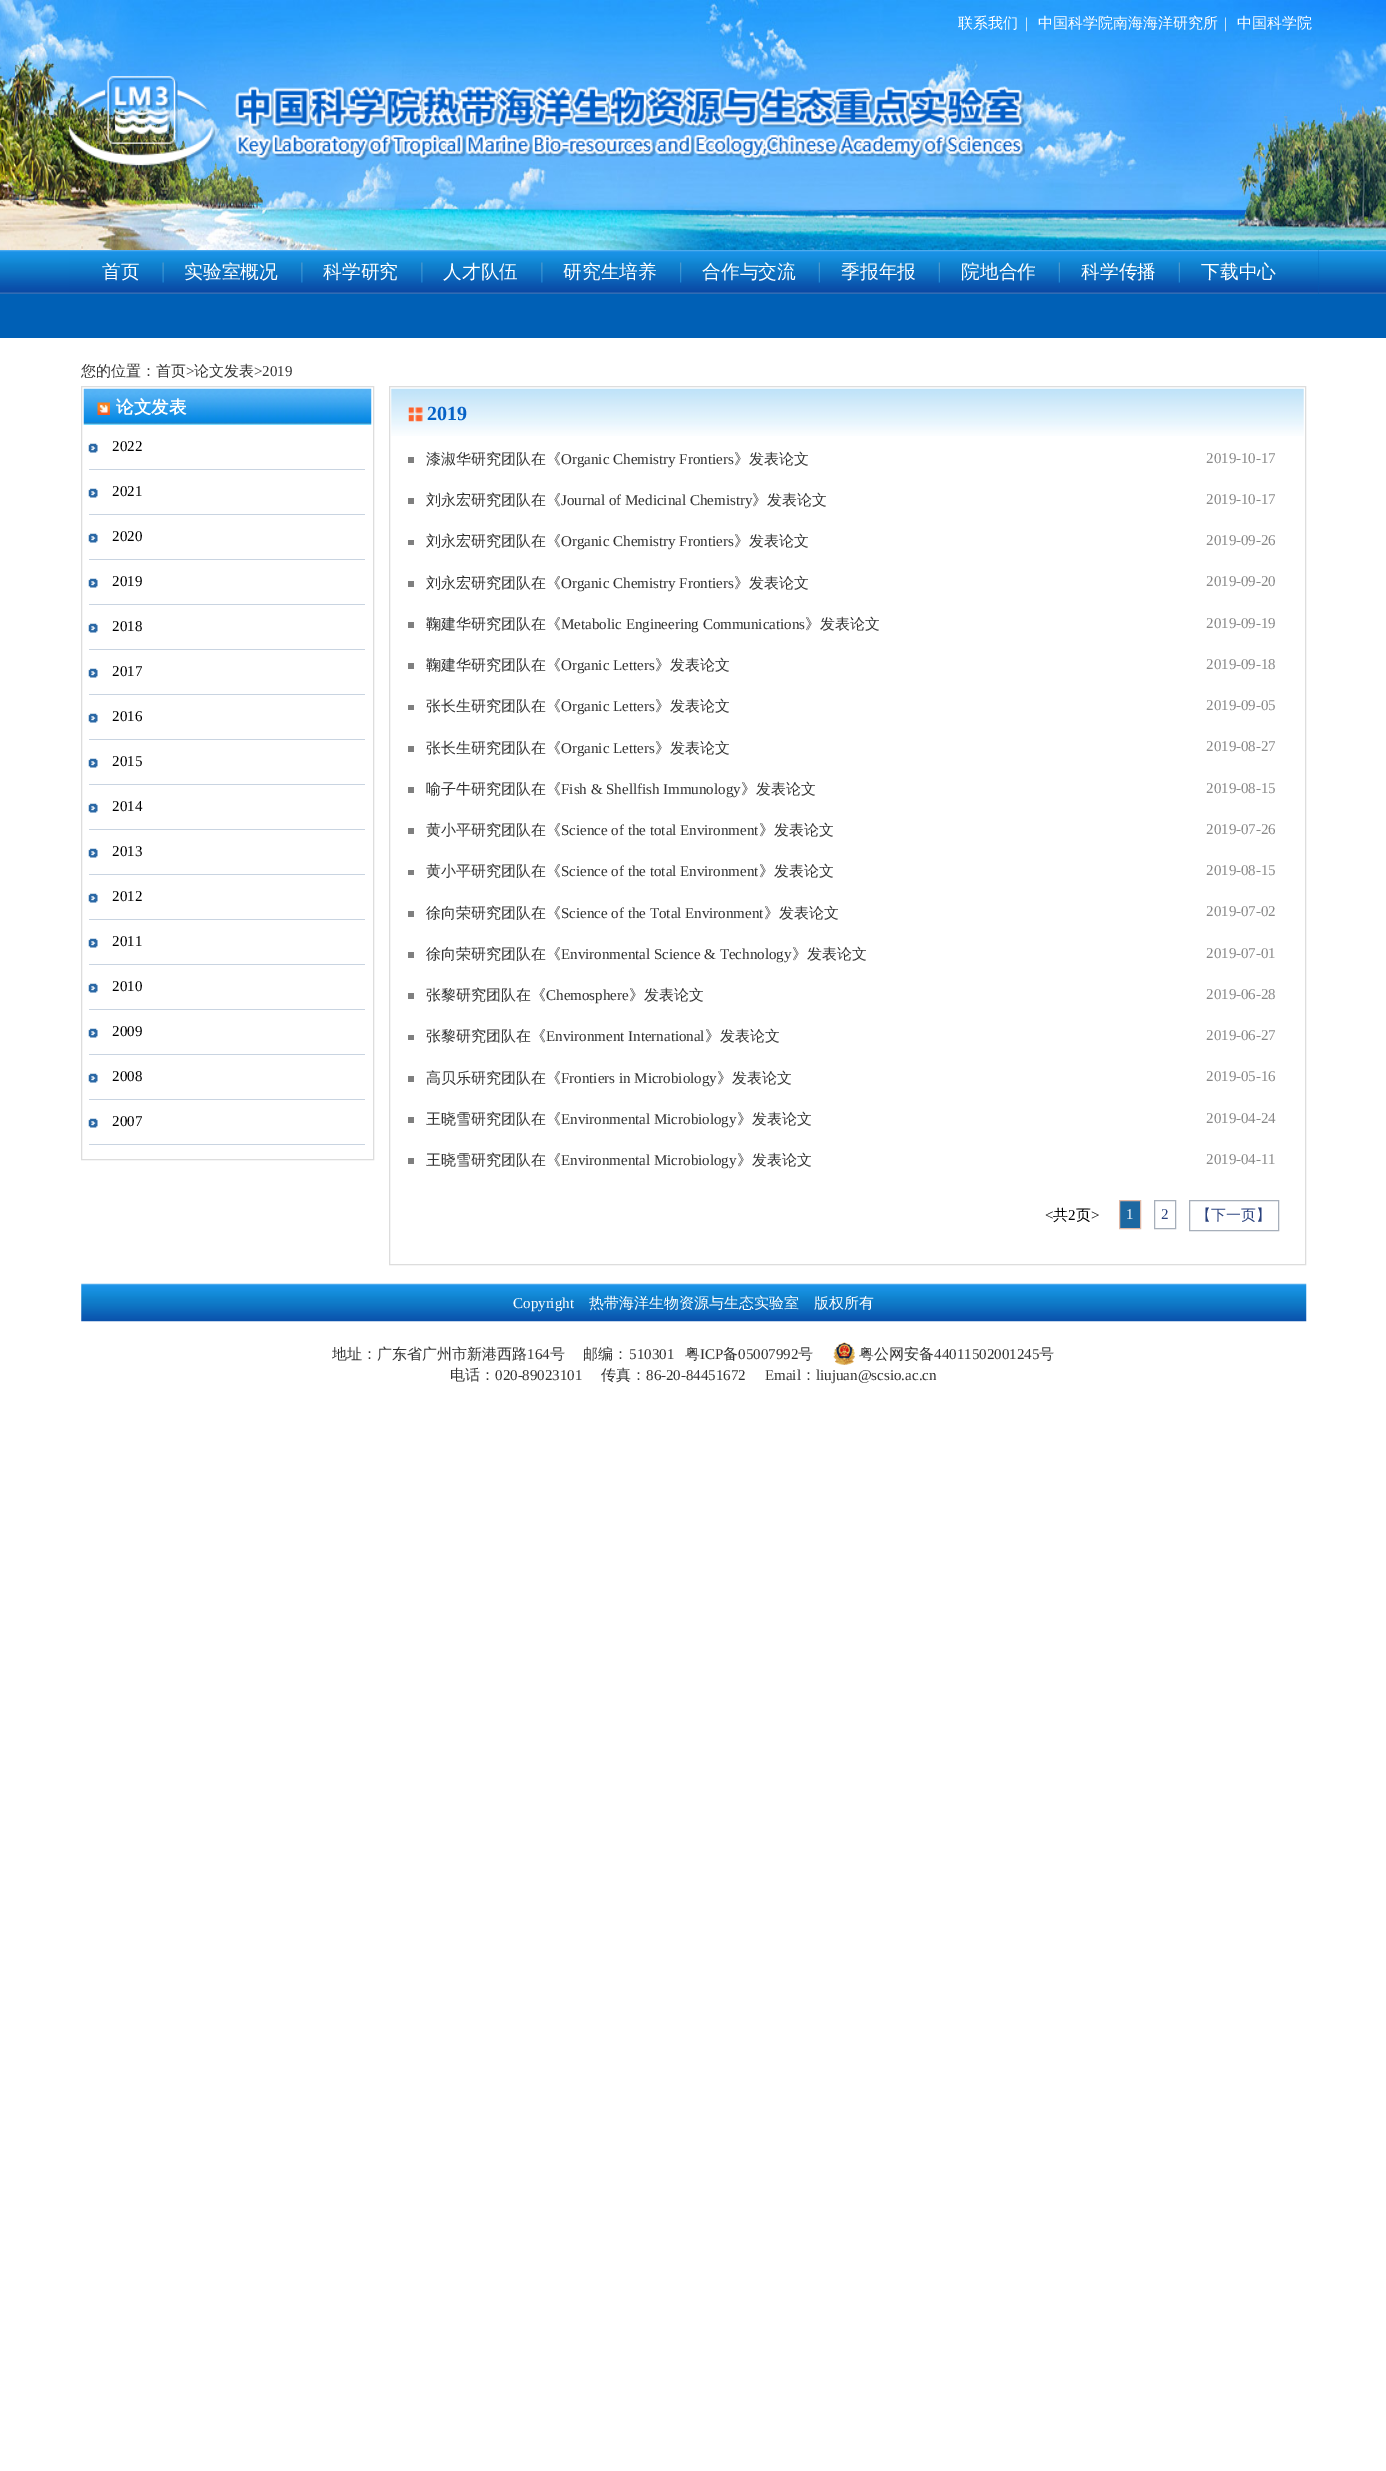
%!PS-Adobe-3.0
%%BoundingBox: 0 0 1386 2471
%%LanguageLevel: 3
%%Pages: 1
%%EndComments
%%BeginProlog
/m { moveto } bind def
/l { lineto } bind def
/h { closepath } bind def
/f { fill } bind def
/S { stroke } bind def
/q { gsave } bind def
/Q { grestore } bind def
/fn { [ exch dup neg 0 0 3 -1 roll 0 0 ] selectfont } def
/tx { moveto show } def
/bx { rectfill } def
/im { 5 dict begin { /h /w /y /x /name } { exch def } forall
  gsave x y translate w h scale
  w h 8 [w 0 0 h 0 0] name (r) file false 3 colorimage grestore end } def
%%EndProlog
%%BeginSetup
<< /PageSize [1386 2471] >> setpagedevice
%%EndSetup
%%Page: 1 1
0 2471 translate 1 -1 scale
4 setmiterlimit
1 setgray
0 0 1386 2471 bx
(image0.raw) 0 0 1386 250 im
/WenQuanYiZenHei-Medium 15 fn
(联系我们) 958 28 tx
/LiberationSerif-Regular 15 fn
(|) 1025 28 tx
/WenQuanYiZenHei-Medium 15 fn
(中国科学院南海海洋研究所) 1038 28 tx
/LiberationSerif-Regular 15 fn
(|) 1224 28 tx
/WenQuanYiZenHei-Medium 15 fn
(中国科学院) 1237 28 tx
(image1.raw) 68 76 957 92 im
0 0.376 0.714 setrgbcolor
0 293 1386 45 bx
(image2.raw) 0 250 1386 44 im
69 250 1250 44 bx
(image3.raw) 69 250 1250 44 im
(image4.raw) 162 262 2 21 im
/WenQuanYiZenHei-Medium 18.75 fn
1 setgray
(首页) 102 278 tx
(image5.raw) 301 262 2 21 im
(实验室概况) 184 278 tx
(image5.raw) 421 262 2 21 im
(科学研究) 323 278 tx
(image5.raw) 541 262 2 21 im
(人才队伍) 443 278 tx
(image6.raw) 680 262 2 21 im
(研究生培养) 563 278 tx
(image7.raw) 818 262 2 21 im
(合作与交流) 702 278 tx
(image7.raw) 938 262 2 21 im
(季报年报) 841 278 tx
(image7.raw) 1058 262 2 21 im
(院地合作) 961 278 tx
(image7.raw) 1178 262 2 21 im
(科学传播) 1081 278 tx
(下载中心) 1201 278 tx
/WenQuanYiZenHei-Medium 15 fn
0.2 setgray
(您的位置：首页) 81 376 tx
/LiberationSerif-Regular 15 fn
(>) 186 376 tx
/WenQuanYiZenHei-Medium 15 fn
(论文发表) 194 376 tx
/LiberationSerif-Regular 15 fn
(>2019) 254 376 tx
0.867 setgray
81.5 386.5 292 773 rectstroke
(image8.raw) 83 388 289 37 im
(image9.raw) 97 402 13 13 im
/WenQuanYiZenHei-Bold 17.5 fn
1 setgray
(论文发表) 116 413 tx
(image10.raw) 88 443 10 10 im
0.788 0.831 0.882 setrgbcolor
89 469 276 1 bx
/LiberationSerif-Regular 15 fn
0 setgray
(2022) 112 451 tx
(image10.raw) 88 488 10 10 im
0.788 0.831 0.882 setrgbcolor
89 514 276 1 bx
0 setgray
(2021) 112 496 tx
(image10.raw) 88 533 10 10 im
0.788 0.831 0.882 setrgbcolor
89 559 276 1 bx
0 setgray
(2020) 112 541 tx
(image10.raw) 88 578 10 10 im
0.788 0.831 0.882 setrgbcolor
89 604 276 1 bx
0 setgray
(2019) 112 586 tx
(image10.raw) 88 623 10 10 im
0.788 0.831 0.882 setrgbcolor
89 649 276 1 bx
0 setgray
(2018) 112 631 tx
(image10.raw) 88 668 10 10 im
0.788 0.831 0.882 setrgbcolor
89 694 276 1 bx
0 setgray
(2017) 112 676 tx
(image10.raw) 88 713 10 10 im
0.788 0.831 0.882 setrgbcolor
89 739 276 1 bx
0 setgray
(2016) 112 721 tx
(image10.raw) 88 758 10 10 im
0.788 0.831 0.882 setrgbcolor
89 784 276 1 bx
0 setgray
(2015) 112 766 tx
(image10.raw) 88 803 10 10 im
0.788 0.831 0.882 setrgbcolor
89 829 276 1 bx
0 setgray
(2014) 112 811 tx
(image10.raw) 88 848 10 10 im
0.788 0.831 0.882 setrgbcolor
89 874 276 1 bx
0 setgray
(2013) 112 856 tx
(image10.raw) 88 893 10 10 im
0.788 0.831 0.882 setrgbcolor
89 919 276 1 bx
0 setgray
(2012) 112 901 tx
(image10.raw) 88 938 10 10 im
0.788 0.831 0.882 setrgbcolor
89 964 276 1 bx
0 setgray
(2011) 112 946 tx
(image10.raw) 88 983 10 10 im
0.788 0.831 0.882 setrgbcolor
89 1009 276 1 bx
0 setgray
(2010) 112 991 tx
(image10.raw) 88 1028 10 10 im
0.788 0.831 0.882 setrgbcolor
89 1054 276 1 bx
0 setgray
(2009) 112 1036 tx
(image10.raw) 88 1073 10 10 im
0.788 0.831 0.882 setrgbcolor
89 1099 276 1 bx
0 setgray
(2008) 112 1081 tx
(image10.raw) 88 1118 10 10 im
0.788 0.831 0.882 setrgbcolor
89 1144 276 1 bx
0 setgray
(2007) 112 1126 tx
0.867 setgray
389.5 386.5 916 878 rectstroke
(image11.raw) 391 388 913 48 im
(image12.raw) 408 407 15 15 im
/LiberationSerif-Bold 20 fn
0.024 0.384 0.78 setrgbcolor
(2019) 427 420 tx
0.498 setgray
408 457 6 6 bx
/WenQuanYiZenHei-Medium 15 fn
0.2 setgray
(漆淑华研究团队在《) 426 464 tx
/LiberationSerif-Regular 15 fn
(Organic Chemistry Frontiers) 561 464 tx
/WenQuanYiZenHei-Medium 15 fn
(》发表论文) 734 464 tx
/LiberationSerif-Regular 15 fn
0.533 setgray
(2019-10-17) 1206 463 tx
0.498 setgray
408 498 6 6 bx
/WenQuanYiZenHei-Medium 15 fn
0.2 setgray
(刘永宏研究团队在《) 426 505 tx
/LiberationSerif-Regular 15 fn
(Journal of Medicinal Chemistry) 561 505 tx
/WenQuanYiZenHei-Medium 15 fn
(》发表论文) 752 505 tx
/LiberationSerif-Regular 15 fn
0.533 setgray
(2019-10-17) 1206 504 tx
0.498 setgray
408 540 6 5 bx
/WenQuanYiZenHei-Medium 15 fn
0.2 setgray
(刘永宏研究团队在《) 426 546 tx
/LiberationSerif-Regular 15 fn
(Organic Chemistry Frontiers) 561 546 tx
/WenQuanYiZenHei-Medium 15 fn
(》发表论文) 734 546 tx
/LiberationSerif-Regular 15 fn
0.533 setgray
(2019-09-26) 1206 545 tx
0.498 setgray
408 581 6 6 bx
/WenQuanYiZenHei-Medium 15 fn
0.2 setgray
(刘永宏研究团队在《) 426 588 tx
/LiberationSerif-Regular 15 fn
(Organic Chemistry Frontiers) 561 588 tx
/WenQuanYiZenHei-Medium 15 fn
(》发表论文) 734 588 tx
/LiberationSerif-Regular 15 fn
0.533 setgray
(2019-09-20) 1206 586 tx
0.498 setgray
408 622 6 6 bx
/WenQuanYiZenHei-Medium 15 fn
0.2 setgray
(鞠建华研究团队在《) 426 629 tx
/LiberationSerif-Regular 15 fn
(Metabolic Engineering Communications) 561 629 tx
/WenQuanYiZenHei-Medium 15 fn
(》发表论文) 805 629 tx
/LiberationSerif-Regular 15 fn
0.533 setgray
(2019-09-19) 1206 628 tx
0.498 setgray
408 663 6 6 bx
/WenQuanYiZenHei-Medium 15 fn
0.2 setgray
(鞠建华研究团队在《) 426 670 tx
/LiberationSerif-Regular 15 fn
(Organic Letters) 561 670 tx
/WenQuanYiZenHei-Medium 15 fn
(》发表论文) 655 670 tx
/LiberationSerif-Regular 15 fn
0.533 setgray
(2019-09-18) 1206 669 tx
0.498 setgray
408 705 6 5 bx
/WenQuanYiZenHei-Medium 15 fn
0.2 setgray
(张长生研究团队在《) 426 711 tx
/LiberationSerif-Regular 15 fn
(Organic Letters) 561 711 tx
/WenQuanYiZenHei-Medium 15 fn
(》发表论文) 655 711 tx
/LiberationSerif-Regular 15 fn
0.533 setgray
(2019-09-05) 1206 710 tx
0.498 setgray
408 746 6 6 bx
/WenQuanYiZenHei-Medium 15 fn
0.2 setgray
(张长生研究团队在《) 426 753 tx
/LiberationSerif-Regular 15 fn
(Organic Letters) 561 753 tx
/WenQuanYiZenHei-Medium 15 fn
(》发表论文) 655 753 tx
/LiberationSerif-Regular 15 fn
0.533 setgray
(2019-08-27) 1206 751 tx
0.498 setgray
408 787 6 6 bx
/WenQuanYiZenHei-Medium 15 fn
0.2 setgray
(喻子牛研究团队在《) 426 794 tx
/LiberationSerif-Regular 15 fn
(Fish & Shellfish Immunology) 561 794 tx
/WenQuanYiZenHei-Medium 15 fn
(》发表论文) 741 794 tx
/LiberationSerif-Regular 15 fn
0.533 setgray
(2019-08-15) 1206 793 tx
0.498 setgray
408 828 6 6 bx
/WenQuanYiZenHei-Medium 15 fn
0.2 setgray
(黄小平研究团队在《) 426 835 tx
/LiberationSerif-Regular 15 fn
(Science of the total Environment) 561 835 tx
/WenQuanYiZenHei-Medium 15 fn
(》发表论文) 759 835 tx
/LiberationSerif-Regular 15 fn
0.533 setgray
(2019-07-26) 1206 834 tx
0.498 setgray
408 870 6 5 bx
/WenQuanYiZenHei-Medium 15 fn
0.2 setgray
(黄小平研究团队在《) 426 876 tx
/LiberationSerif-Regular 15 fn
(Science of the total Environment) 561 876 tx
/WenQuanYiZenHei-Medium 15 fn
(》发表论文) 759 876 tx
/LiberationSerif-Regular 15 fn
0.533 setgray
(2019-08-15) 1206 875 tx
0.498 setgray
408 911 6 6 bx
/WenQuanYiZenHei-Medium 15 fn
0.2 setgray
(徐向荣研究团队在《) 426 918 tx
/LiberationSerif-Regular 15 fn
(Science of the Total Environment) 561 918 tx
/WenQuanYiZenHei-Medium 15 fn
(》发表论文) 764 918 tx
/LiberationSerif-Regular 15 fn
0.533 setgray
(2019-07-02) 1206 916 tx
0.498 setgray
408 952 6 6 bx
/WenQuanYiZenHei-Medium 15 fn
0.2 setgray
(徐向荣研究团队在《) 426 959 tx
/LiberationSerif-Regular 15 fn
(Environmental Science & Technology) 561 959 tx
/WenQuanYiZenHei-Medium 15 fn
(》发表论文) 792 959 tx
/LiberationSerif-Regular 15 fn
0.533 setgray
(2019-07-01) 1206 958 tx
0.498 setgray
408 993 6 6 bx
/WenQuanYiZenHei-Medium 15 fn
0.2 setgray
(张黎研究团队在《) 426 1000 tx
/LiberationSerif-Regular 15 fn
(Chemosphere) 546 1000 tx
/WenQuanYiZenHei-Medium 15 fn
(》发表论文) 629 1000 tx
/LiberationSerif-Regular 15 fn
0.533 setgray
(2019-06-28) 1206 999 tx
0.498 setgray
408 1035 6 5 bx
/WenQuanYiZenHei-Medium 15 fn
0.2 setgray
(张黎研究团队在《) 426 1041 tx
/LiberationSerif-Regular 15 fn
(Environment International) 546 1041 tx
/WenQuanYiZenHei-Medium 15 fn
(》发表论文) 705 1041 tx
/LiberationSerif-Regular 15 fn
0.533 setgray
(2019-06-27) 1206 1040 tx
0.498 setgray
408 1076 6 6 bx
/WenQuanYiZenHei-Medium 15 fn
0.2 setgray
(高贝乐研究团队在《) 426 1083 tx
/LiberationSerif-Regular 15 fn
(Frontiers in Microbiology) 561 1083 tx
/WenQuanYiZenHei-Medium 15 fn
(》发表论文) 717 1083 tx
/LiberationSerif-Regular 15 fn
0.533 setgray
(2019-05-16) 1206 1081 tx
0.498 setgray
408 1117 6 6 bx
/WenQuanYiZenHei-Medium 15 fn
0.2 setgray
(王晓雪研究团队在《) 426 1124 tx
/LiberationSerif-Regular 15 fn
(Environmental Microbiology) 561 1124 tx
/WenQuanYiZenHei-Medium 15 fn
(》发表论文) 737 1124 tx
/LiberationSerif-Regular 15 fn
0.533 setgray
(2019-04-24) 1206 1123 tx
0.498 setgray
408 1158 6 6 bx
/WenQuanYiZenHei-Medium 15 fn
0.2 setgray
(王晓雪研究团队在《) 426 1165 tx
/LiberationSerif-Regular 15 fn
(Environmental Microbiology) 561 1165 tx
/WenQuanYiZenHei-Medium 15 fn
(》发表论文) 737 1165 tx
/LiberationSerif-Regular 15 fn
0.533 setgray
(2019-04-11) 1206 1164 tx
0 setgray
(<) 1045 1220 tx
/WenQuanYiZenHei-Medium 15 fn
(共) 1053 1220 tx
/LiberationSerif-Regular 15 fn
(2) 1068 1220 tx
/WenQuanYiZenHei-Medium 15 fn
(页) 1076 1220 tx
/LiberationSerif-Regular 15 fn
(>) 1091 1220 tx
0.114 0.408 0.631 setrgbcolor
1119.5 1200.5 m 1140.5 1200.5 l 1140.5 1228.5 l 1119.5 1228.5 l h q f Q
0.882 0.722 0.647 setrgbcolor
S
1 setgray
(1) 1126 1219 tx
0.655 0.686 0.729 setrgbcolor
1154.5 1200.5 21 28 rectstroke
0.165 0.259 0.494 setrgbcolor
(2) 1161 1219 tx
0.655 0.686 0.729 setrgbcolor
1189.5 1200.5 89 30 rectstroke
/WenQuanYiZenHei-Medium 15 fn
0.165 0.259 0.494 setrgbcolor
(【下一页】) 1196 1220 tx
(image13.raw) 81 1283 1226 39 im
/LiberationSerif-Regular 15 fn
1 setgray
(Copyright) 513 1308 tx
/WenQuanYiZenHei-Medium 15 fn
(热带海洋生物资源与生态实验室) 589 1308 tx
(版权所有) 814 1308 tx
0.2 setgray
(地址：广东省广州市新港西路) 332 1359 tx
/LiberationSerif-Regular 15 fn
(164) 527 1359 tx
/WenQuanYiZenHei-Medium 15 fn
550 1359 m -1 0 32 (号 　邮编：) widthshow
/LiberationSerif-Regular 15 fn
(510301) 629 1359 tx
/WenQuanYiZenHei-Medium 15 fn
(粤) 685 1359 tx
/LiberationSerif-Regular 15 fn
(ICP) 700 1359 tx
/WenQuanYiZenHei-Medium 15 fn
(备) 723 1359 tx
/LiberationSerif-Regular 15 fn
(05007992) 738 1359 tx
/WenQuanYiZenHei-Medium 15 fn
(号) 798 1359 tx
(image14.raw) 833 1342 22 23 im
(粤公网安备) 859 1359 tx
/LiberationSerif-Regular 15 fn
(44011502001245) 934 1359 tx
/WenQuanYiZenHei-Medium 15 fn
(号) 1039 1359 tx
(电话：) 450 1380 tx
/LiberationSerif-Regular 15 fn
(020-89023101) 495 1380 tx
/WenQuanYiZenHei-Medium 15 fn
(传真：) 601 1380 tx
/LiberationSerif-Regular 15 fn
(86-20-84451672) 646 1380 tx
(Email) 765 1380 tx
/WenQuanYiZenHei-Medium 15 fn
(：) 801 1380 tx
/LiberationSerif-Regular 15 fn
(liujuan@scsio.ac.cn) 816 1380 tx
showpage
%%EOF
